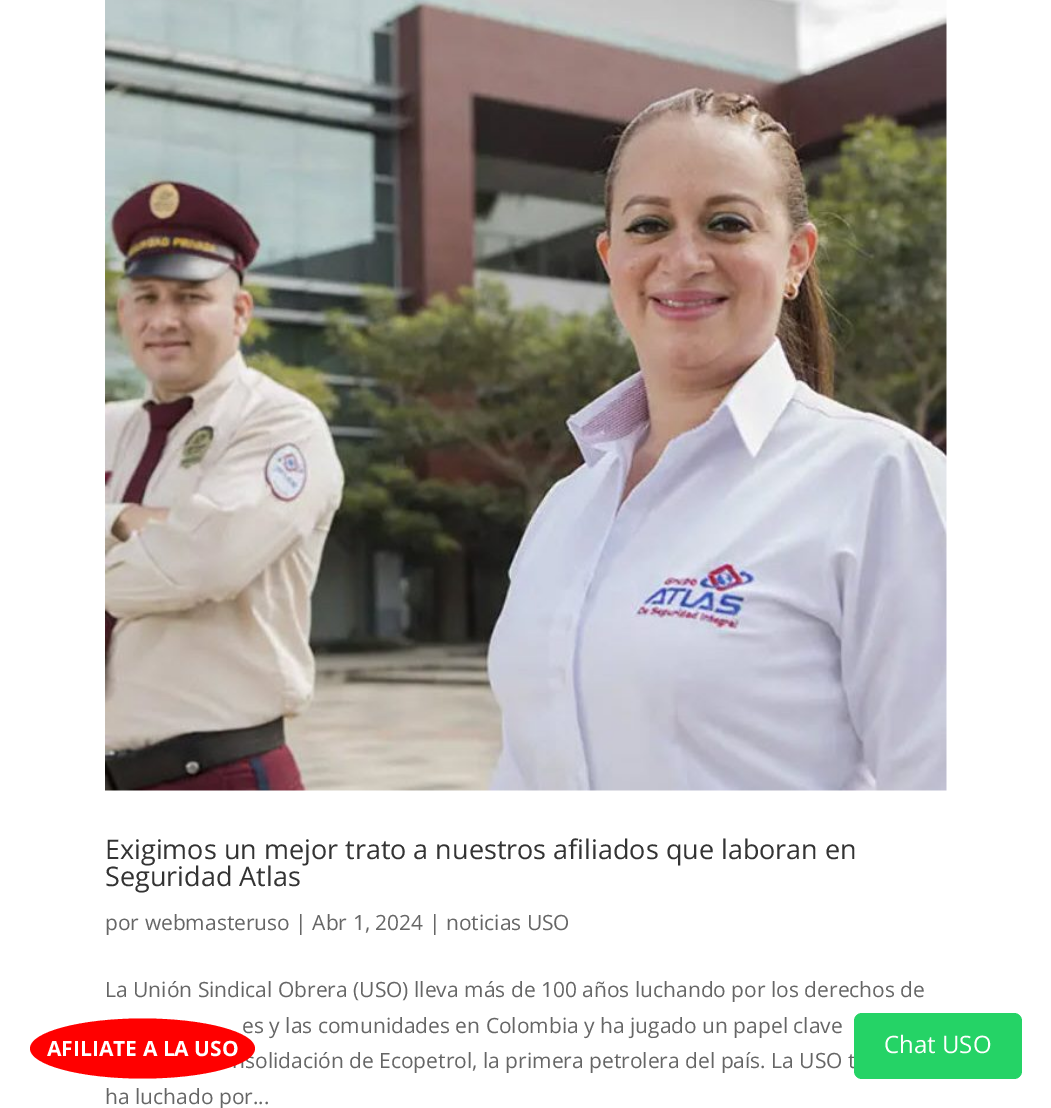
%!PS-Adobe-3.0
%%BoundingBox: 0 0 1051 1108
%%LanguageLevel: 3
%%Pages: 1
%%EndComments
%%BeginProlog
/m { moveto } bind def
/c { curveto } bind def
/h { closepath } bind def
/f { fill } bind def
/fn { [ exch dup neg 0 0 3 -1 roll 0 0 ] selectfont } def
/tx { moveto show } def
/bx { rectfill } def
/rr { 5 dict begin { /r /h /w /y /x } { exch def } forall
  x r add y moveto x w add y 2 copy h add r arct x w add y h add x 1 index r arct
  x y h add x y r arct x y 2 copy exch w add exch r arct closepath end } def
/im { 5 dict begin { /h /w /y /x /name } { exch def } forall
  gsave x y translate w h scale
  w h 8 [w 0 0 h 0 0] name (r) file false 3 colorimage grestore end } def
%%EndProlog
%%BeginSetup
<< /PageSize [1051 1108] >> setpagedevice
%%EndSetup
%%Page: 1 1
0 1108 translate 1 -1 scale
4 setmiterlimit
1 setgray
0 0 1051 1108 bx
(image0.raw) 105 0 842 791 im
/OpenSans-Regular 27 fn
0.2 setgray
(Exigimos un mejor trato a nuestros afiliados que laboran en) 105 859 tx
(Seguridad Atlas) 105 886 tx
/OpenSans-Regular 21 fn
0.4 setgray
(por webmasteruso | Abr 1, 2024 | noticias USO) 105 930 tx
(La Unión Sindical Obrera \(USO\) lleva más de 100 años luchando por los derechos de) 105 997 tx
(es y las comunidades en Colombia y ha jugado un papel clave) 242 1033 tx
(nsolidación de Ecopetrol, la primera petrolera del país. La USO t) 232 1068 tx
(ha luchado por...) 105 1104 tx
0.145 0.827 0.4 setrgbcolor
854 1013 168 66 8 rr f
/OpenSans-Regular 24 fn
1 setgray
(Chat USO) 884 1053 tx
1 0 0 setrgbcolor
142.5 1018.5 m 204.5 1018.5 255 1032 255 1048.5 c 255 1065 204.5 1078.5 142.5 1078.5 c 80.5 1078.5 30 1065 30 1048.5 c 30 1032 80.5 1018.5 142.5 1018.5 c h f
/OpenSans-Bold 21 fn
1 setgray
(AFILIATE A LA USO) 47 1056 tx
showpage
%%EOF
